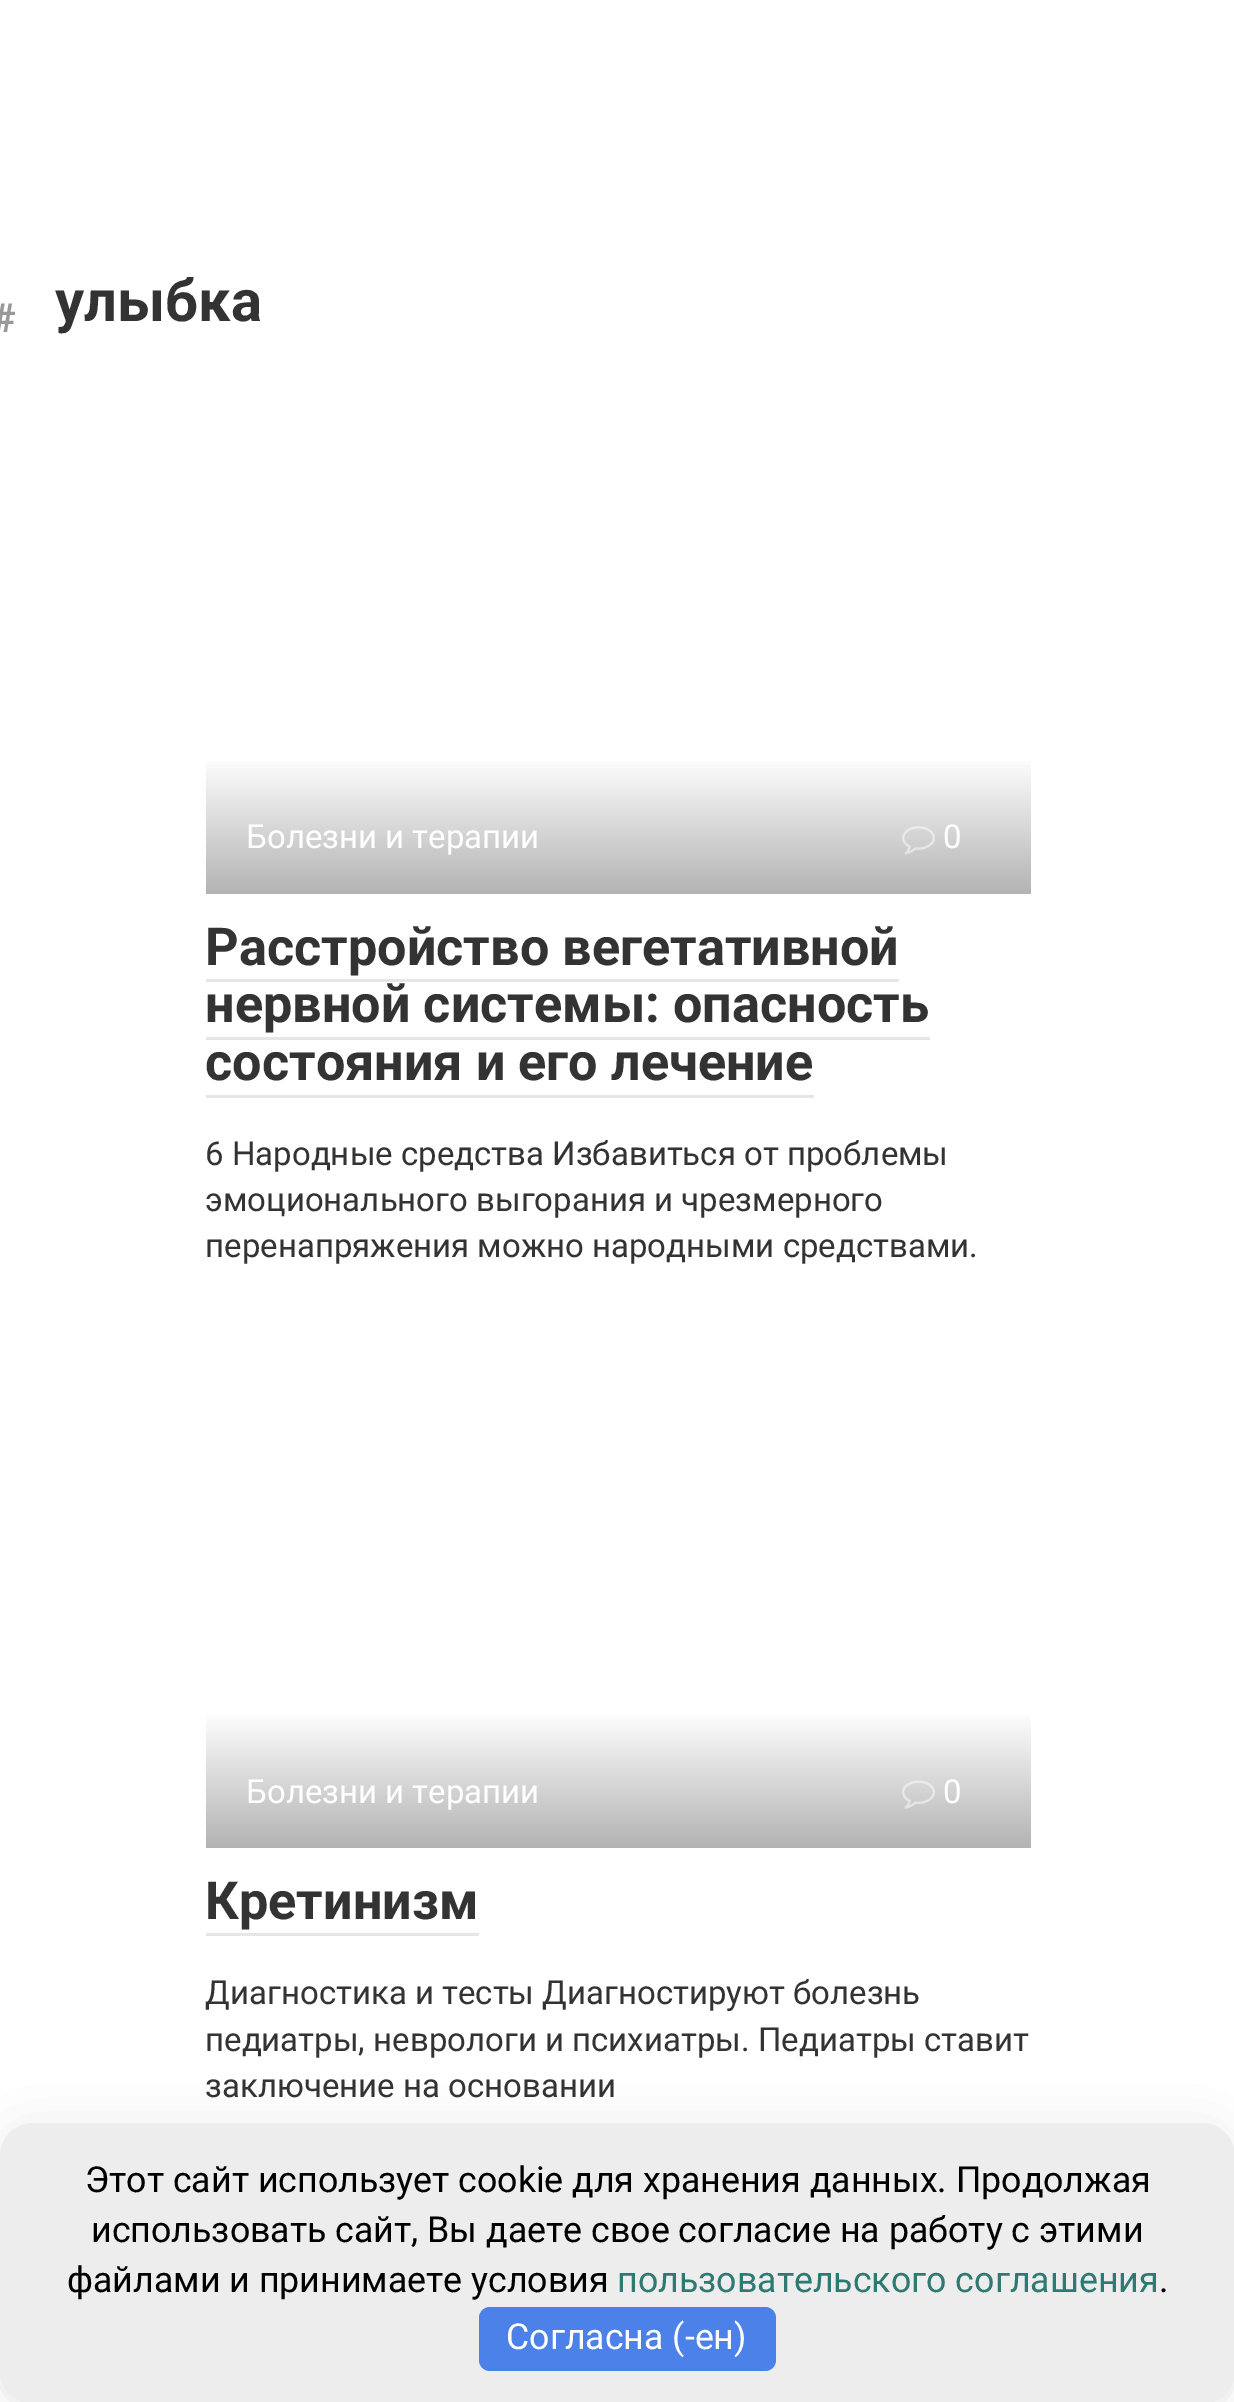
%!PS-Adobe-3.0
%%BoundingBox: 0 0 1234 2402
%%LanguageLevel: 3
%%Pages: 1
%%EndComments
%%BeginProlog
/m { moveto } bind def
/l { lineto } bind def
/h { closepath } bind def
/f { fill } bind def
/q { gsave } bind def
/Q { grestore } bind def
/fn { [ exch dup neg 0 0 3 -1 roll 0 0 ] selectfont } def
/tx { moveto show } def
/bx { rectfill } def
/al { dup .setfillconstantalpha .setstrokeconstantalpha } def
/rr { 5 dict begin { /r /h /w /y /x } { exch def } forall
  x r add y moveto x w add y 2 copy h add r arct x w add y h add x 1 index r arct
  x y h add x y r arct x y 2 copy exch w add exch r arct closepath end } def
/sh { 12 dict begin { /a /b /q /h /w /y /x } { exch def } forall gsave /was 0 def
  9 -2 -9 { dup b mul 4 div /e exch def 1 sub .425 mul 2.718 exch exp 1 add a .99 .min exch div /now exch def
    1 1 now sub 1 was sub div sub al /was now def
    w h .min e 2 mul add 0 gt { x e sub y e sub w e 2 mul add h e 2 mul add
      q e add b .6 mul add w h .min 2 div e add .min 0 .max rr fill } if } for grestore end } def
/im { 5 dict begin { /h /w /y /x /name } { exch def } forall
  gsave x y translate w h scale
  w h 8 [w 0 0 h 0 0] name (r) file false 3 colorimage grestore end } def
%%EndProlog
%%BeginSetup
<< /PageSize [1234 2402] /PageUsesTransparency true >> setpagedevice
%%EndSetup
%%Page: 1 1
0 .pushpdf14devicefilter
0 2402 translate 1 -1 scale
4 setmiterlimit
1 setgray
0 0 1234 2402 bx
/Roboto-Bold 40 fn
0.6 setgray
(#) -8 332 tx
/Roboto-Bold 58 fn
0.2 setgray
(улыбка) 55 321 tx
q 206 761 m 1031 761 l 1031 894 l 206 894 l h clip newpath
<< /ShadingType 2 /ColorSpace /DeviceRGB /Coords [619 756 619 894] /Extend [true true] /Function << /FunctionType 2 /Domain [0 1] /C0 [1 1 1] /C1 [0.702 0.702 0.702] /N 1 >> >> shfill Q
/Roboto-Regular 33 fn
1 setgray
(Болезни и терапии) 246 848 tx
(image0.raw) 902 826 33 29 im
(0) 943 848 tx
/Roboto-Bold 52.25 fn
0.2 setgray
(Расстройство вегетативной) 205 965 tx
(нервной системы: опасность) 205 1022 tx
0.902 setgray
206 979 693 3 bx
0.2 setgray
(состояния и его лечение) 205 1080 tx
0.902 setgray
206 1037 724 3 bx
206 1095 608 3 bx
/Roboto-Regular 33 fn
0.2 setgray
(6 Народные средства Избавиться от проблемы) 205 1165 tx
(эмоционального выгорания и чрезмерного) 205 1211 tx
(перенапряжения можно народными средствами.) 205 1257 tx
q 206 1716 m 1031 1716 l 1031 1848 l 206 1848 l h clip newpath
<< /ShadingType 2 /ColorSpace /DeviceRGB /Coords [619 1711 619 1848] /Extend [true true] /Function << /FunctionType 2 /Domain [0 1] /C0 [1 1 1] /C1 [0.702 0.702 0.702] /N 1 >> >> shfill Q
1 setgray
(Болезни и терапии) 246 1803 tx
(image1.raw) 902 1780 33 29 im
(0) 943 1803 tx
/Roboto-Bold 52.25 fn
0.2 setgray
(Кретинизм) 205 1919 tx
0.902 setgray
206 1933 273 3 bx
/Roboto-Regular 33 fn
0.2 setgray
(Диагностика и тесты Диагностируют болезнь) 205 2004 tx
(педиатры, неврологи и психиатры. Педиатры ставит) 205 2051 tx
(заключение на основании) 205 2097 tx
0.161 0.173 0.22 setrgbcolor
14 2145 1207 253 19 27.5 0.2 sh
0.929 setgray
0 2123 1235 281 33 rr f
/Roboto-Regular 35.75 fn
0 setgray
(Этот сайт использует cookie для хранения данных. Продолжая) 85 2192 tx
(использовать сайт, Вы даете свое согласие на работу с этими) 91 2242 tx
(файлами и принимаете условия) 67 2292 tx
0.18 0.475 0.447 setrgbcolor
(пользовательского соглашения) 617 2292 tx
0 setgray
(.) 1159 2292 tx
0.294 0.506 0.91 setrgbcolor
479 2307 297 64 11 rr f
1 setgray
(Согласна \(-ен\)) 506 2349 tx
.poppdf14devicefilter showpage
%%EOF
